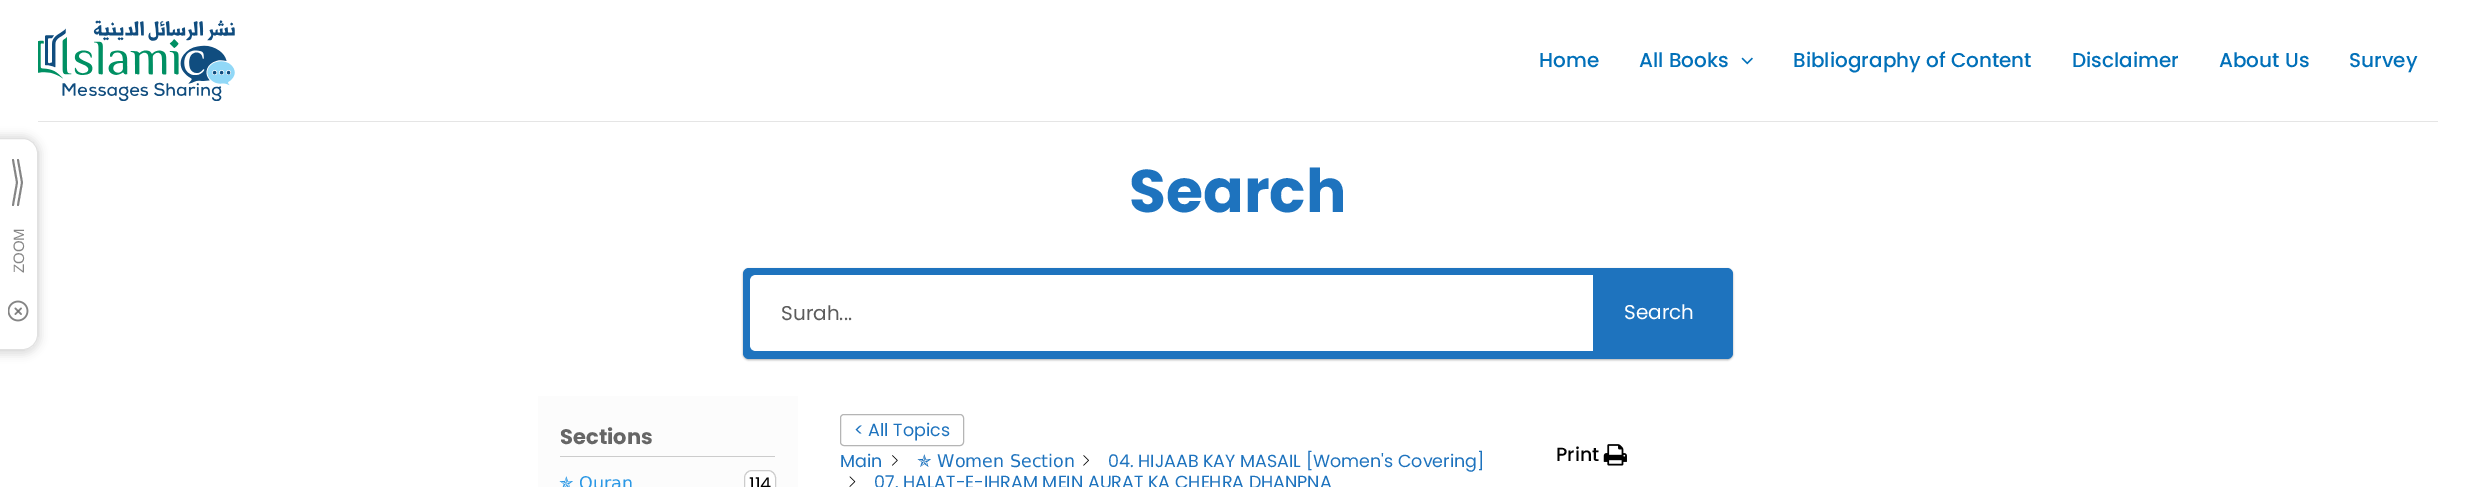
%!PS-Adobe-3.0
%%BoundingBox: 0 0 2474 487
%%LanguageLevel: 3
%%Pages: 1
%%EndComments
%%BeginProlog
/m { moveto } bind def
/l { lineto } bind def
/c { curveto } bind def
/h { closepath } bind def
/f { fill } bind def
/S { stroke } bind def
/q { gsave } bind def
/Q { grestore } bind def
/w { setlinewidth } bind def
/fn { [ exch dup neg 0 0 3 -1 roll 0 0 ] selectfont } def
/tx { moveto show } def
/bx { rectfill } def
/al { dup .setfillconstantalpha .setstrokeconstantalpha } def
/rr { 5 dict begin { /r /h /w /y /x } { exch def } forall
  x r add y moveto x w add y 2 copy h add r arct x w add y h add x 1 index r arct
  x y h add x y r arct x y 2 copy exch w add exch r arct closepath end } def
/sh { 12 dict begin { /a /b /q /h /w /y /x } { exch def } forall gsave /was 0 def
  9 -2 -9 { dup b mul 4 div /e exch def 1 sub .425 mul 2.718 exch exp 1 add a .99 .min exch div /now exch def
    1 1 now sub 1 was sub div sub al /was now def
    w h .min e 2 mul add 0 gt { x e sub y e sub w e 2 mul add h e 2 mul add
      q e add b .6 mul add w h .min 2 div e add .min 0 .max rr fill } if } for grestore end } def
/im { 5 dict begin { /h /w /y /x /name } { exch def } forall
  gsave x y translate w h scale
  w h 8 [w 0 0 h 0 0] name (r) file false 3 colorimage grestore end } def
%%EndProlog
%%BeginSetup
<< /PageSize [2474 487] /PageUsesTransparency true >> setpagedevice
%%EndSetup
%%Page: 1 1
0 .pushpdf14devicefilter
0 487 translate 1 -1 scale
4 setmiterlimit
1 setgray
0 0 2474 487 bx
0.2 setgray
-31 135 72 220 19 4 0.15 sh
1 setgray
-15 138 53 212 15 rr f
0.15 al
0.2 setgray
-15.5 138.5 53 211 14.5 rr S
1 al
0.522 setgray
1.9 w
1 setlinecap
18 160 m 22 182.5 l 22 182.5 m 18 205 l 17 182.5 m 13 160 l 13 205 m 17 182.5 l S
/LiberationSans-Regular 15 fn
q 24 273 translate -90 rotate 0 0 m (ZOOM) show Q
(image0.raw) 8 300 21 22 im
0.898 setgray
38 121 2400 1 bx
(image1.raw) 38 20 197 81 im
/Poppins-Medium 20 fn
0.004 0.439 0.725 setrgbcolor
(Home) 1539 67 tx
(All Books) 1639 67 tx
(image2.raw) 1741 57 12 8 im
(Bibliography of Content) 1793 67 tx
(Disclaimer) 2072 67 tx
(About Us) 2219 67 tx
(Survey) 2349 67 tx
/Poppins-Bold 60 fn
0.118 0.451 0.745 setrgbcolor
(Search) 1129 212 tx
0 setgray
743 269 990 91 6 1 0.32 sh
0.118 0.451 0.745 setrgbcolor
743 268 990 91 6 rr f
1 setgray
756 275 m 1593 275 l 1593 351 l 756 351 l 752.5 351 750 348.5 750 345 c 750 281 l 750 277.5 752.5 275 756 275 c h f
/Poppins-Regular 20 fn
0.361 setgray
(Surah...) 781 320 tx
1 setgray
(Search) 1624 319 tx
0.988 setgray
538 396 260 91 bx
0.8 setgray
560 456 215 1 bx
/Poppins-Bold 21 fn
0.4 setgray
(Sections) 560 444 tx
/DejaVuSans-Regular 17.5 fn
0.169 0.596 0.898 setrgbcolor
(✯ Quran) 559 489 tx
1 setgray
744.5 470.5 31 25 7.5 rr q f Q
0.8 setgray
1 w
0 setlinecap
S
/Poppins-Regular 17.5 fn
0 setgray
(114) 749 490 tx
0.71 setgray
840.5 414.5 123 31 3.5 rr S
0.118 0.451 0.745 setrgbcolor
(< All Topics) 854 436 tx
(Main) 840 467 tx
(image3.raw) 892 455 6 11 im
/DejaVuSans-Regular 17.5 fn
(✯ Women Section) 917 467 tx
(image4.raw) 1083 455 6 11 im
/Poppins-Regular 17.5 fn
(04. HIJAAB KAY MASAIL [Women's Covering]) 1108 467 tx
(image5.raw) 849 476 7 11 im
(07. HALAT-E-IHRAM MEIN AURAT KA CHEHRA DHANPNA) 874 488 tx
/Poppins-Medium 19 fn
0 setgray
(Print) 1556 461 tx
(image6.raw) 1603 444 24 22 im
.poppdf14devicefilter showpage
%%EOF
